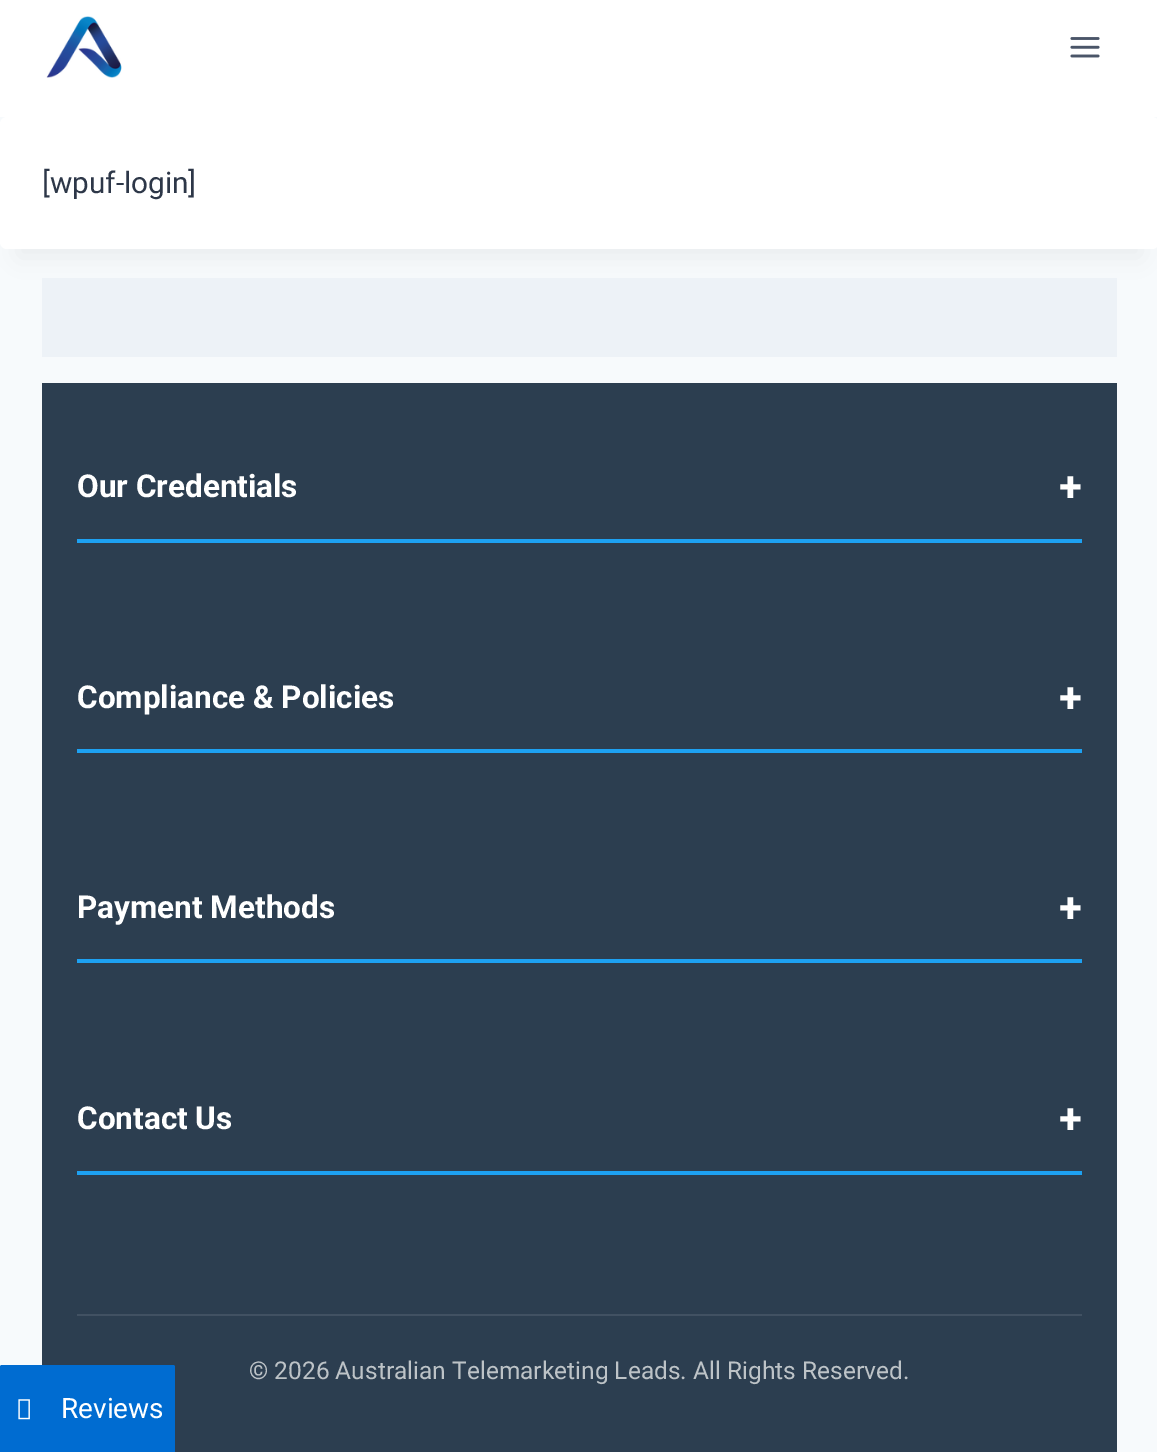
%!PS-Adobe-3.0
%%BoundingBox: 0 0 1157 1452
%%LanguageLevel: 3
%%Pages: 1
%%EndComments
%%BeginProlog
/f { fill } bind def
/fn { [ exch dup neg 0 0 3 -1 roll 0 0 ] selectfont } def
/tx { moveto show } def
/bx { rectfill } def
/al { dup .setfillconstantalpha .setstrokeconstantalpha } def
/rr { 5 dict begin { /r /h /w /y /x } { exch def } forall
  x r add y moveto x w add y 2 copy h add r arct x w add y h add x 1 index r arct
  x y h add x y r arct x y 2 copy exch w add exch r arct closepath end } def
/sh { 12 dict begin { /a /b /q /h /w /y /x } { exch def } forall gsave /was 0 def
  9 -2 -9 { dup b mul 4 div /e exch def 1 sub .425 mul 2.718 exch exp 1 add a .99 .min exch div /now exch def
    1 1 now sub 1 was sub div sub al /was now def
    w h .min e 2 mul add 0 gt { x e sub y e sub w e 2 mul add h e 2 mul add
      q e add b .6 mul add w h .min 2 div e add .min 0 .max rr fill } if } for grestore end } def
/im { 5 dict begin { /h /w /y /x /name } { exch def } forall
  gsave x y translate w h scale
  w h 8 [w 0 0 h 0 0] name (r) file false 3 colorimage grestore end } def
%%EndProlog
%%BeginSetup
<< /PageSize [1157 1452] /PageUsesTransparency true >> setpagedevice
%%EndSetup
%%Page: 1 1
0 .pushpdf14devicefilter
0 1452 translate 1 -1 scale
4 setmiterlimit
0.969 0.98 0.988 setrgbcolor
0 0 1157 1452 bx
1 setgray
0 0 1157 117 bx
(image0.raw) 46 16 76 62 im
(image1.raw) 1070 37 30 21 im
0 setgray
18 161 1123 96 0 13 0.05 sh
1 setgray
0 117 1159 132 7 rr f
/Roboto-Regular 29.75 fn
0.176 0.216 0.282 setrgbcolor
([wpuf-login]) 42 193 tx
0.929 0.949 0.969 setrgbcolor
42 278 1075 79 bx
0.173 0.243 0.314 setrgbcolor
42 383 1075 1069 bx
0.114 0.631 0.949 setrgbcolor
77 539 1005 4 bx
/Roboto-Bold 31.5 fn
1 setgray
(Our Credentials) 77 497 tx
/Roboto-Bold 42 fn
(+) 1059 501 tx
0.114 0.631 0.949 setrgbcolor
77 749 1005 4 bx
/Roboto-Bold 31.5 fn
1 setgray
(Compliance & Policies) 77 708 tx
/Roboto-Bold 42 fn
(+) 1059 712 tx
0.114 0.631 0.949 setrgbcolor
77 959 1005 4 bx
/Roboto-Bold 31.5 fn
1 setgray
(Payment Methods) 77 918 tx
/Roboto-Bold 42 fn
(+) 1059 922 tx
0.114 0.631 0.949 setrgbcolor
77 1171 1005 4 bx
/Roboto-Bold 31.5 fn
1 setgray
(Contact Us) 77 1129 tx
/Roboto-Bold 42 fn
(+) 1059 1133 tx
0.255 0.318 0.384 setrgbcolor
77 1314 1005 2 bx
/Roboto-Regular 24.5 fn
0.741 0.765 0.78 setrgbcolor
(© 2026 Australian Telemarketing Leads. All Rights Reserved.) 249 1379 tx
0 0.424 0.82 setrgbcolor
0 1365 175 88 2 rr f
(image2.raw) 18 1399 12 21 im
/Roboto-Regular 28 fn
1 setgray
(Reviews) 61 1418 tx
.poppdf14devicefilter showpage
%%EOF
